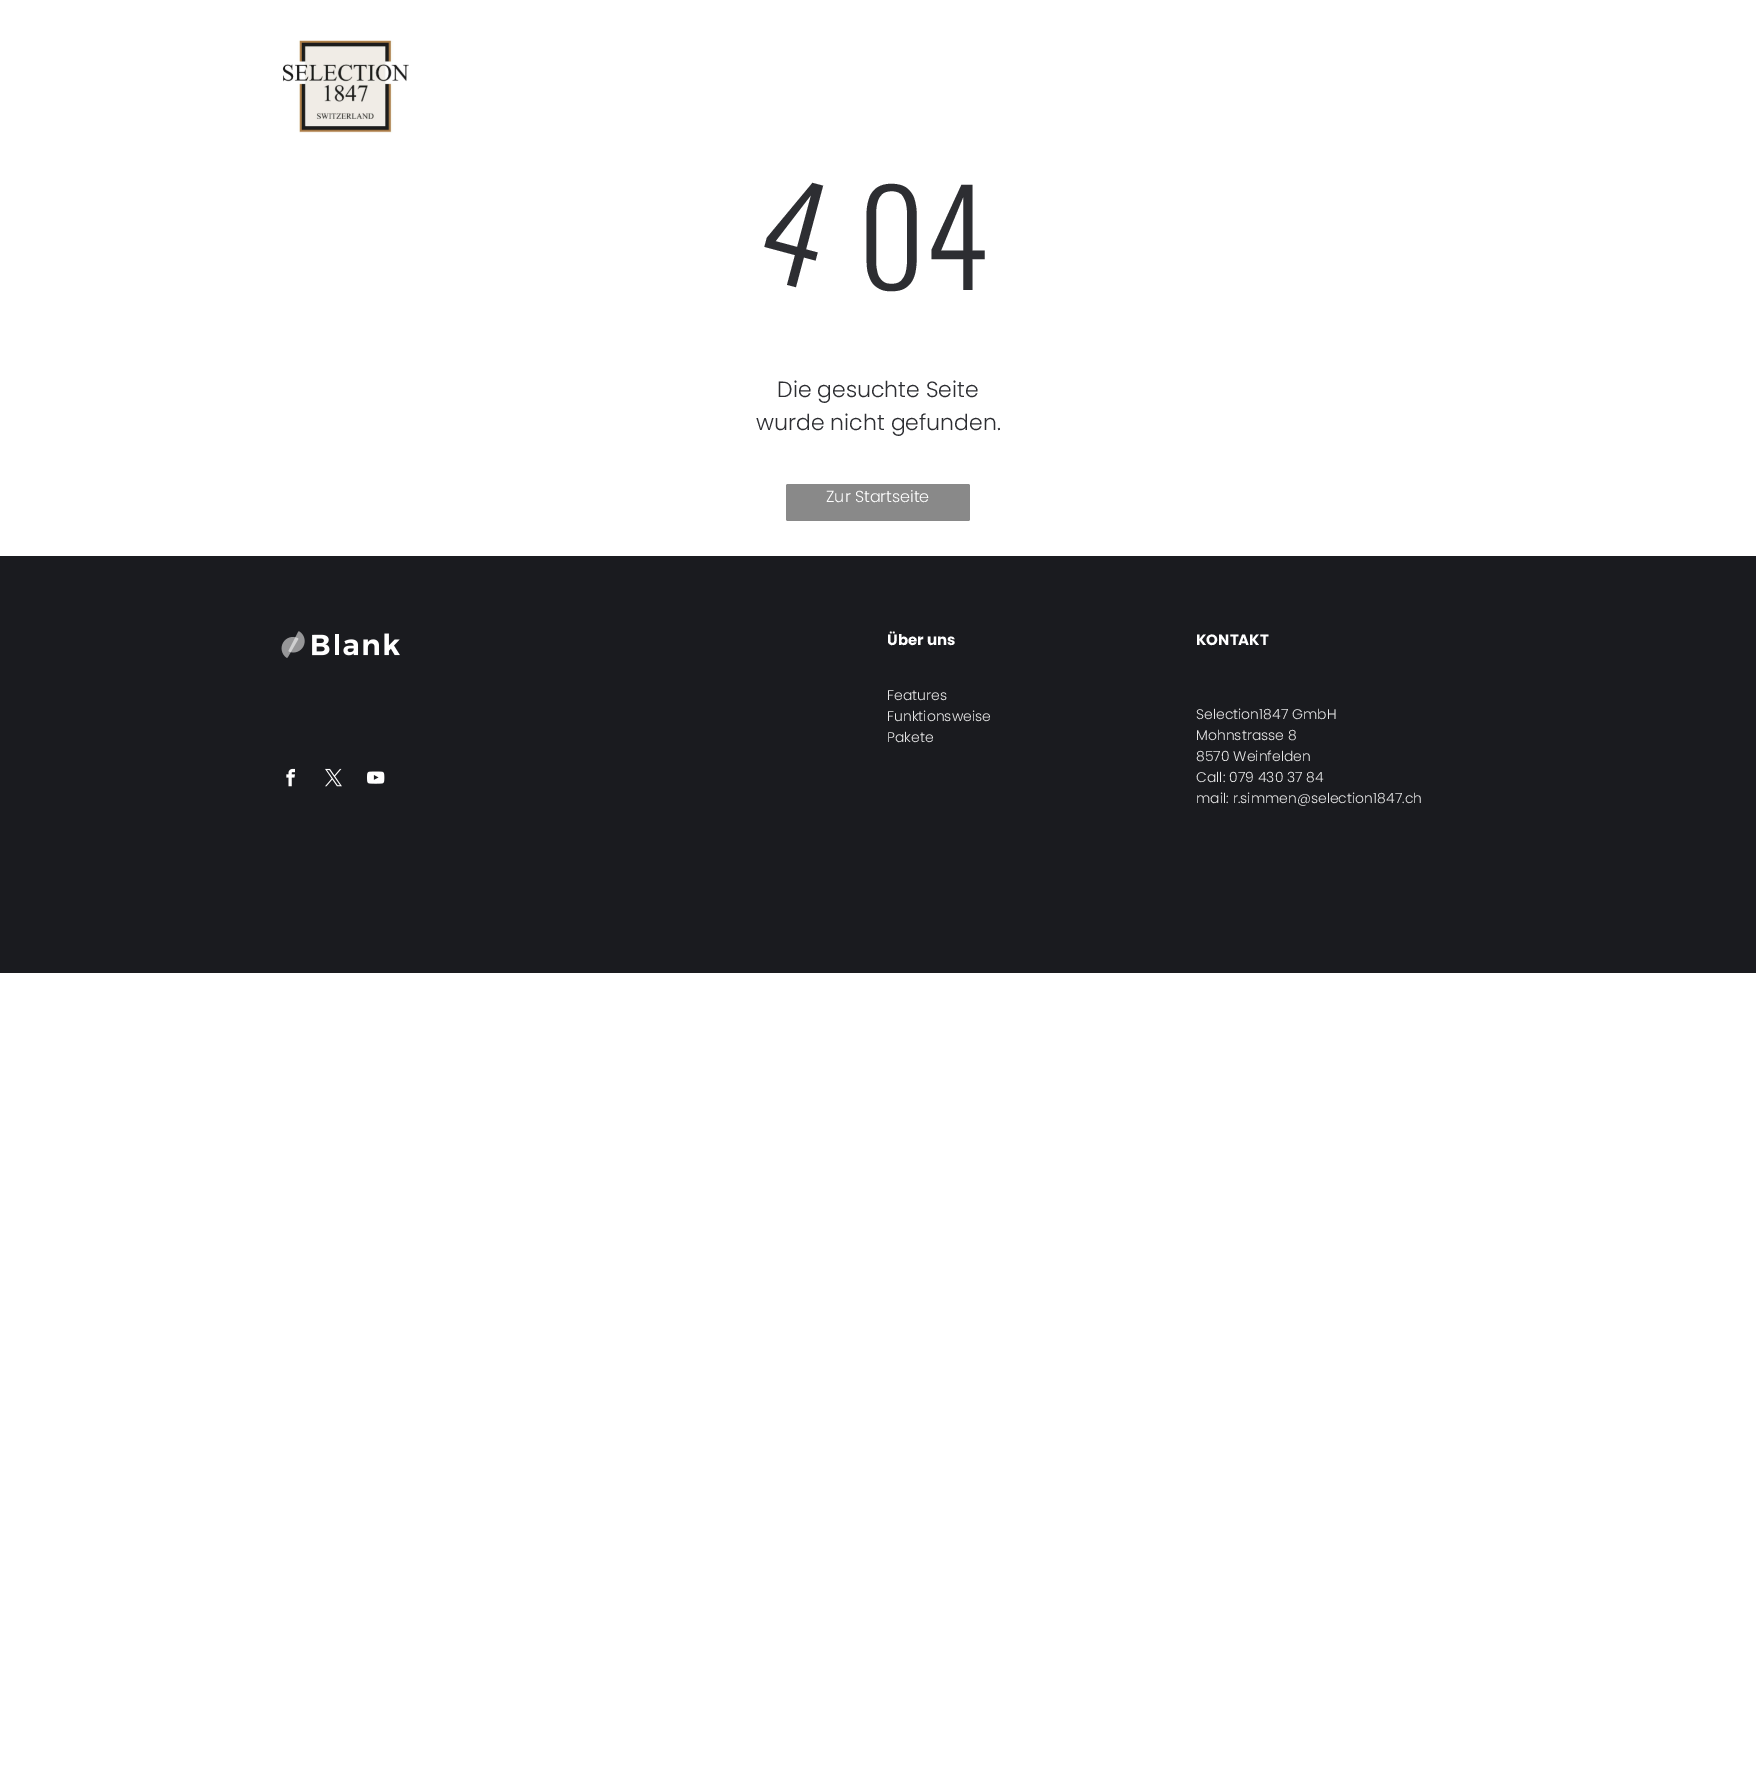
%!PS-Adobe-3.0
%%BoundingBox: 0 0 1756 1774
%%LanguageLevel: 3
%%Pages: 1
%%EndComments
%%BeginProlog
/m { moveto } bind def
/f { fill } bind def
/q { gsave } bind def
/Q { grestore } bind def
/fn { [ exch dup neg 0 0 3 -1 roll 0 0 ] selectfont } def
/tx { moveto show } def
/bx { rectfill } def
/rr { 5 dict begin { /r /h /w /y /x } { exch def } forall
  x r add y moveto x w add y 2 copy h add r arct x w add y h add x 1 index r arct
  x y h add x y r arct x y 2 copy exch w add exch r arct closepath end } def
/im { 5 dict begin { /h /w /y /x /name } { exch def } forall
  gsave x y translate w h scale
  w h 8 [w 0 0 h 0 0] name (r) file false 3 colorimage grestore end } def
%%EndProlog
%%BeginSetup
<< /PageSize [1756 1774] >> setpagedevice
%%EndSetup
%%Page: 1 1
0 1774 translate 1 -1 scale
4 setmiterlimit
1 setgray
0 0 1756 1774 bx
(image0.raw) 282 40 127 93 im
/Oswald-Light 130 fn
0.176 0.18 0.196 setrgbcolor
q 750 275 translate 15 rotate 0 0 m (4) show Q
(04) 858 290 tx
/Poppins-Light 22 fn
(Die gesuchte Seite) 777 397 tx
(wurde nicht gefunden.) 756 430 tx
0.537 setgray
786 484 184 37 2 rr f
/Poppins-Light 16 fn
1 setgray
(Zur Startseite) 826 502 tx
0.102 0.106 0.122 setrgbcolor
0 556 1756 417 bx
(image1.raw) 281 631 119 27 im
(image2.raw) 286 768 9 19 im
(image3.raw) 325 768 17 19 im
(image4.raw) 367 771 18 13 im
/Poppins-Bold 15 fn
1 setgray
(Über uns) 887 645 tx
/Poppins-Light 14 fn
0.918 setgray
(Features) 887 700 tx
(Funktionsweise) 887 721 tx
(Pakete) 887 742 tx
/Poppins-Bold 15 fn
1 setgray
(KONTAKT) 1196 645 tx
/Poppins-Light 14 fn
0.918 setgray
(Selection1847 GmbH) 1196 719 tx
(Mohnstrasse 8) 1196 740 tx
(8570 Weinfelden) 1196 761 tx
(Call: 079 430 37 84) 1196 782 tx
(mail: r.simmen@selection1847.ch) 1196 803 tx
showpage
%%EOF
